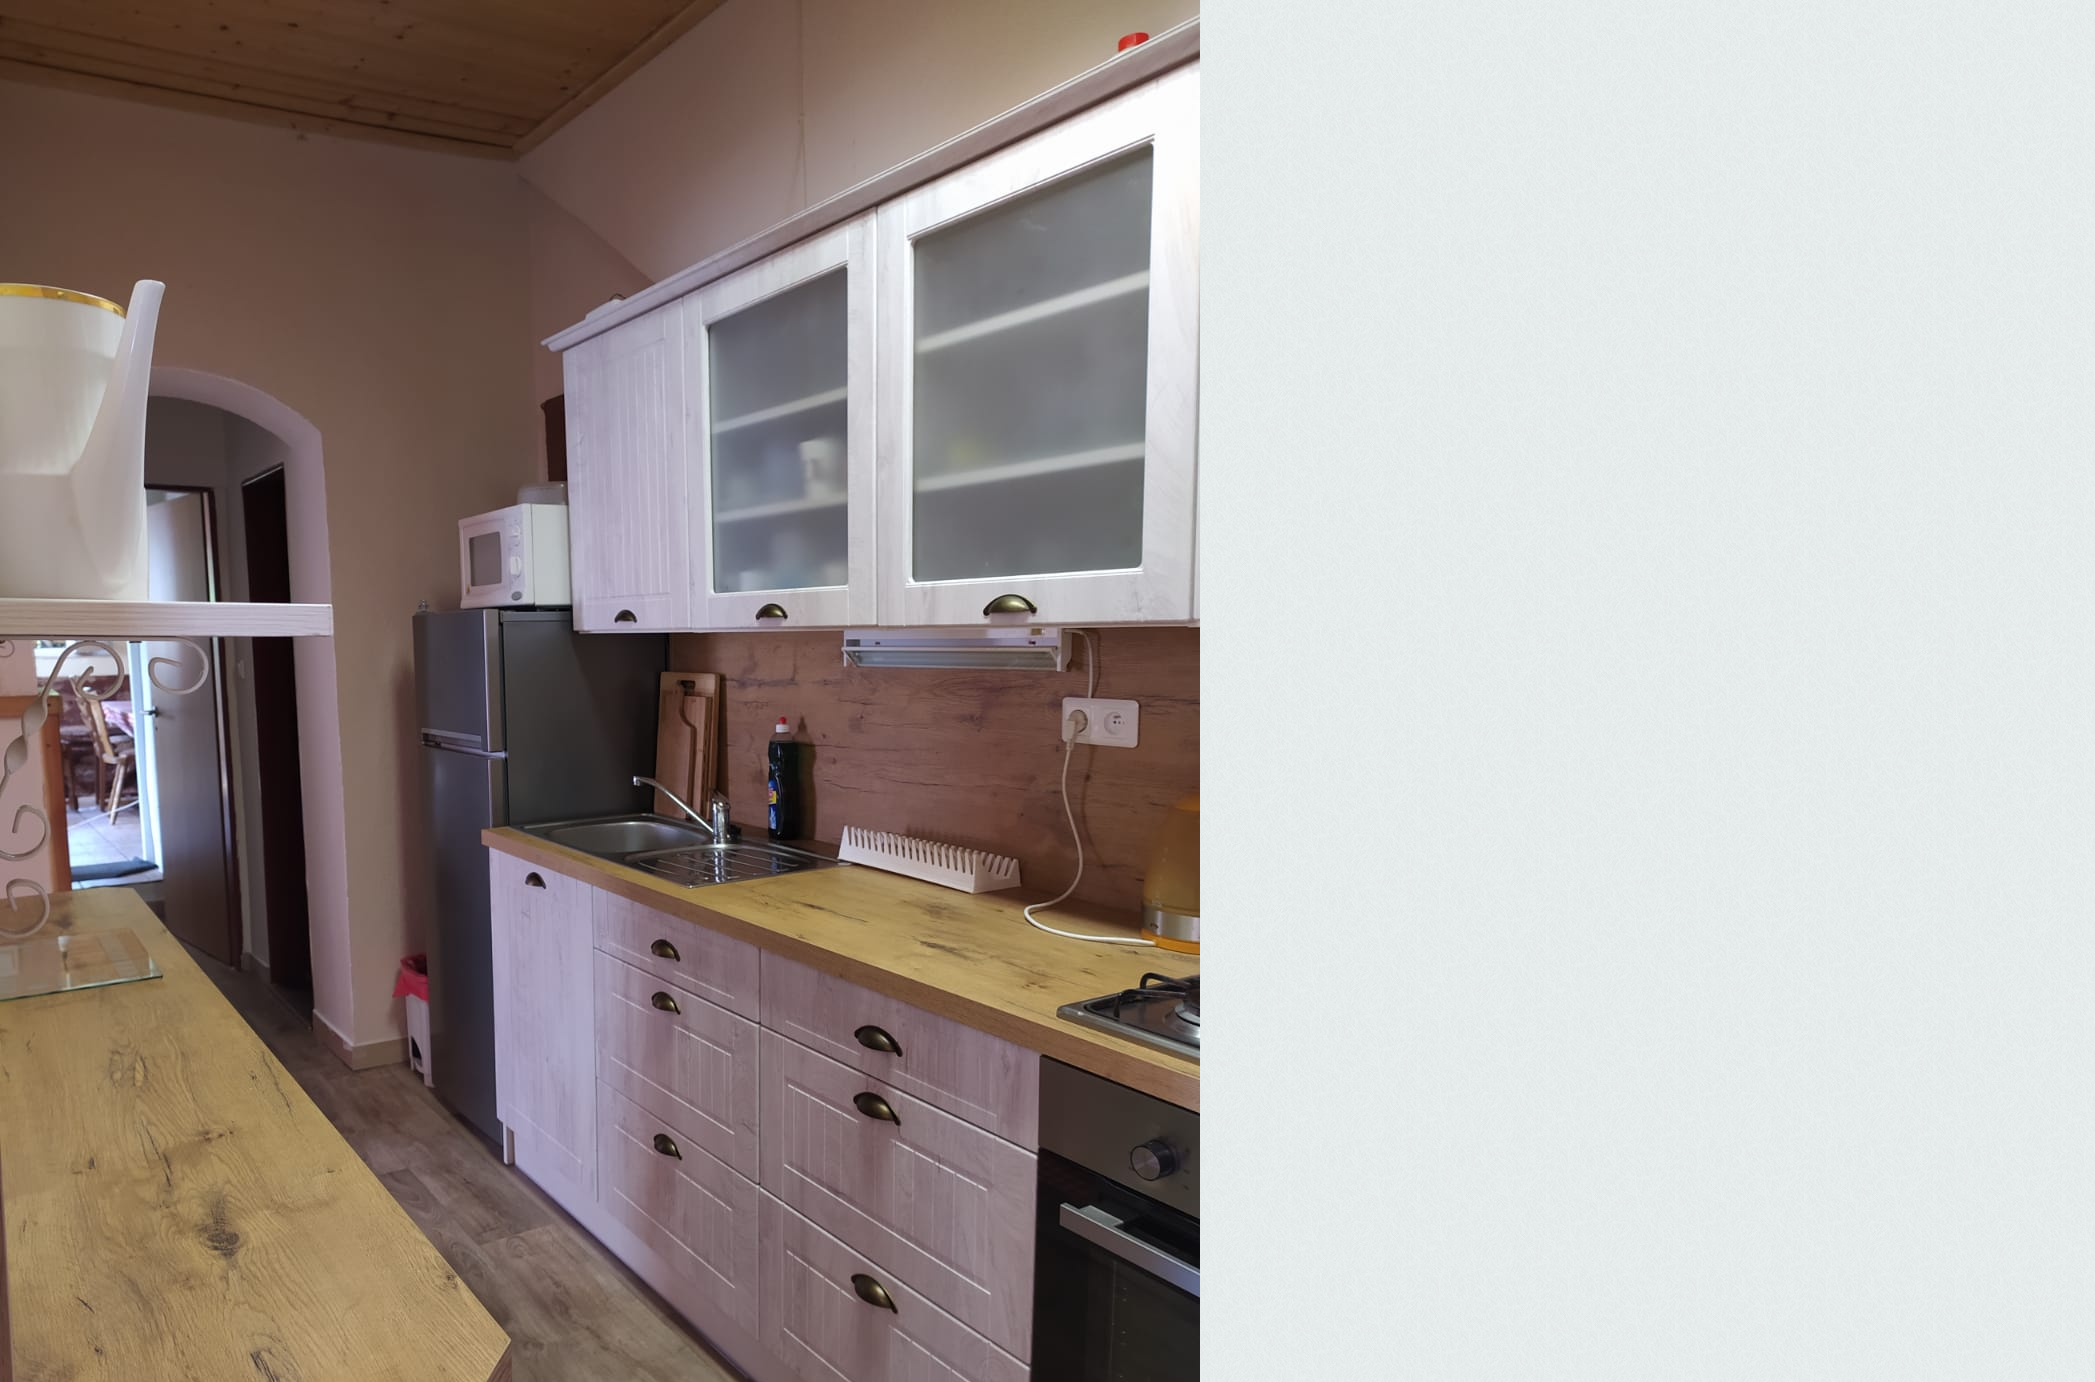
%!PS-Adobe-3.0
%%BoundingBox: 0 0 2095 1382
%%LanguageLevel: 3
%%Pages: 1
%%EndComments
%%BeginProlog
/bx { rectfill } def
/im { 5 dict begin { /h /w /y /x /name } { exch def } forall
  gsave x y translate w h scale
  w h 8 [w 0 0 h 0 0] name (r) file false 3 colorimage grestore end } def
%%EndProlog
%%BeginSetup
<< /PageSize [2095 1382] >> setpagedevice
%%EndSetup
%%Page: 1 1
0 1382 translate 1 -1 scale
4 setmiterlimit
1 setgray
0 0 2095 1382 bx
(image0.raw) 1200 0 895 1382 im
(image1.raw) 0 0 1200 1382 im
showpage
%%EOF
